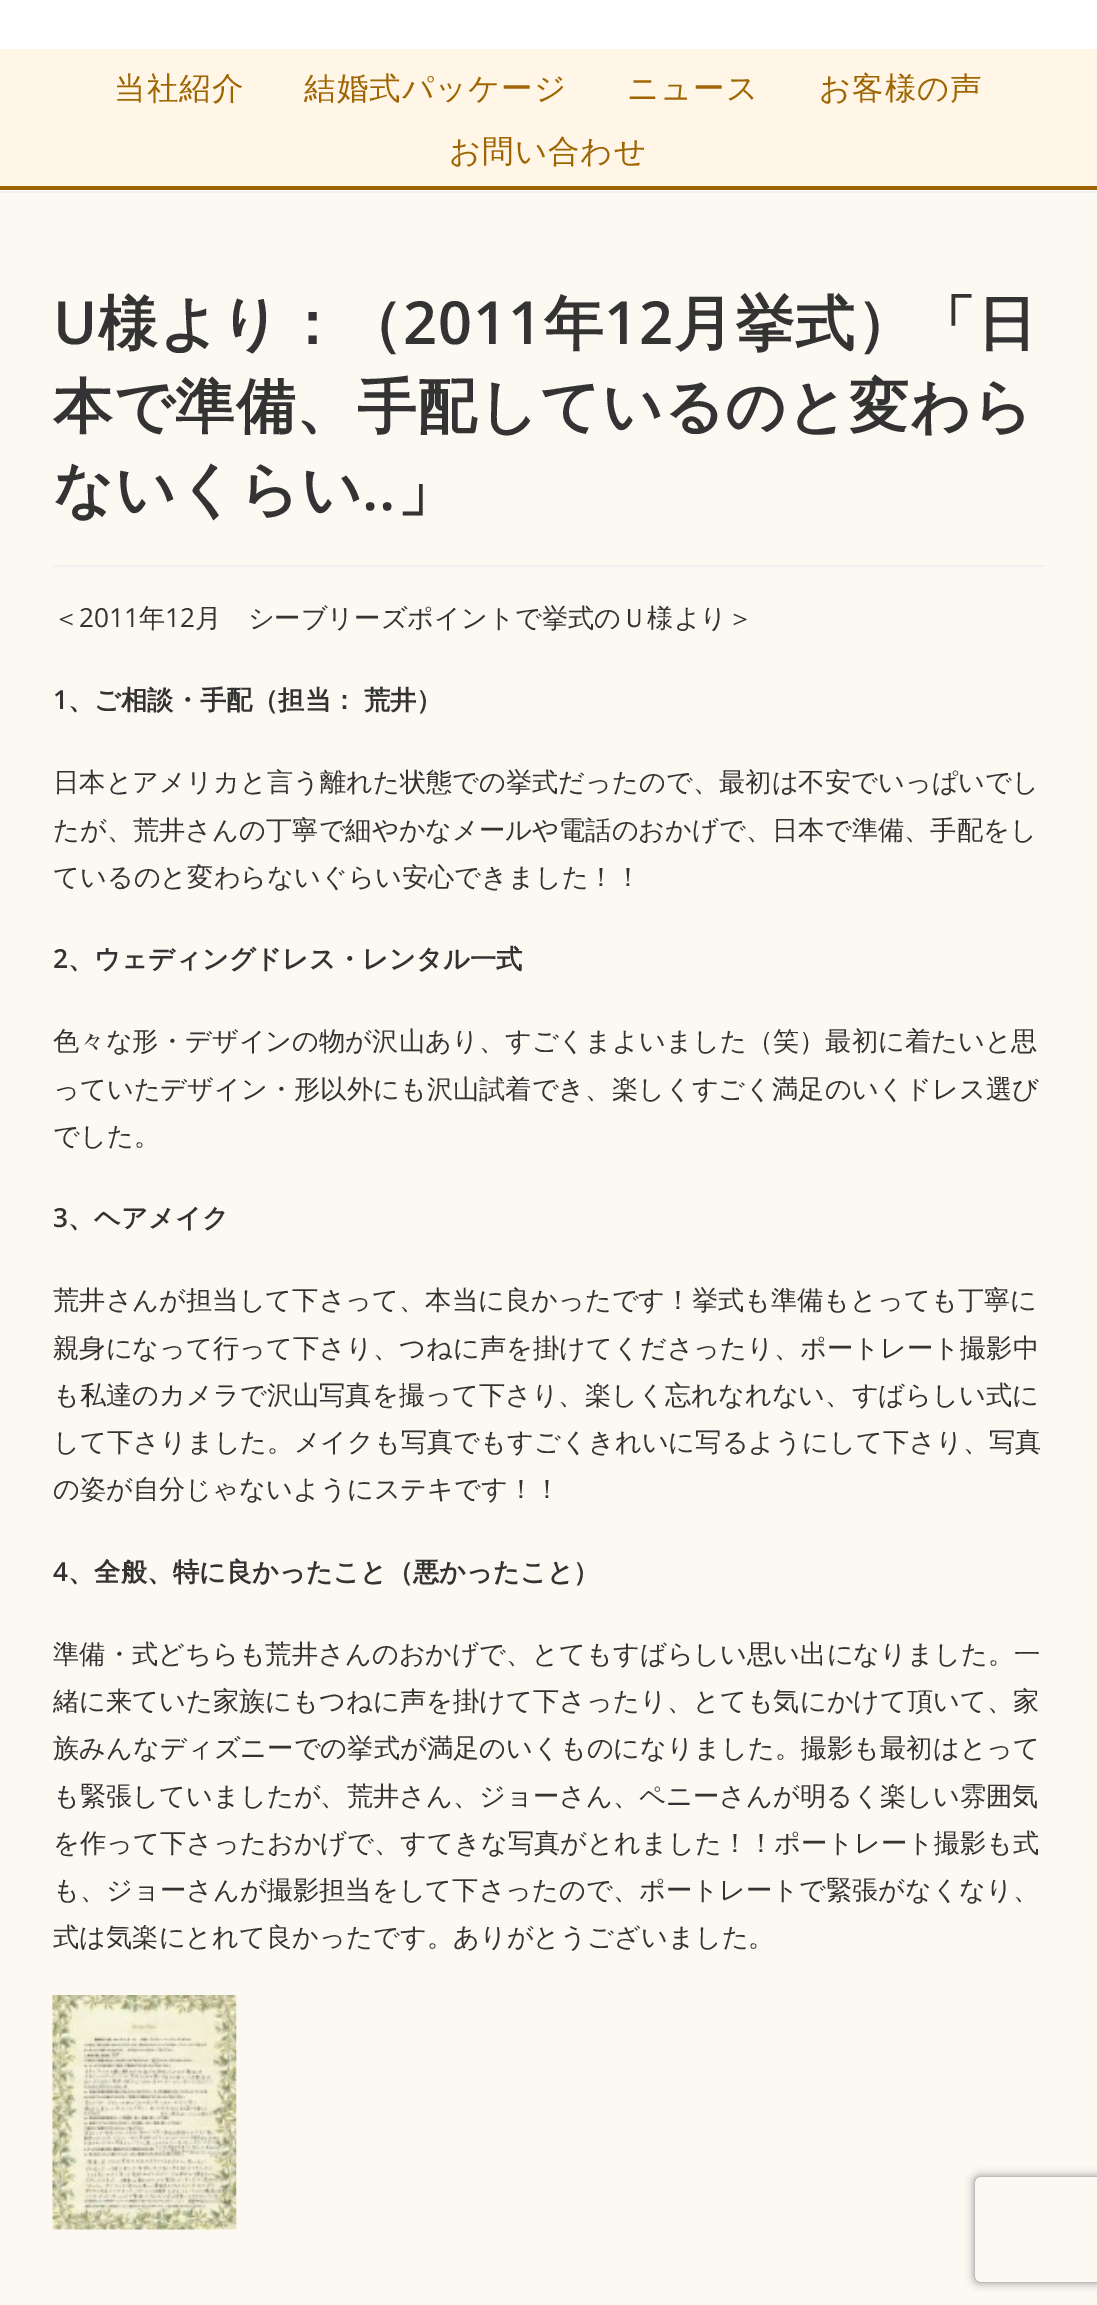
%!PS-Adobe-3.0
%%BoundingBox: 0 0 1097 2305
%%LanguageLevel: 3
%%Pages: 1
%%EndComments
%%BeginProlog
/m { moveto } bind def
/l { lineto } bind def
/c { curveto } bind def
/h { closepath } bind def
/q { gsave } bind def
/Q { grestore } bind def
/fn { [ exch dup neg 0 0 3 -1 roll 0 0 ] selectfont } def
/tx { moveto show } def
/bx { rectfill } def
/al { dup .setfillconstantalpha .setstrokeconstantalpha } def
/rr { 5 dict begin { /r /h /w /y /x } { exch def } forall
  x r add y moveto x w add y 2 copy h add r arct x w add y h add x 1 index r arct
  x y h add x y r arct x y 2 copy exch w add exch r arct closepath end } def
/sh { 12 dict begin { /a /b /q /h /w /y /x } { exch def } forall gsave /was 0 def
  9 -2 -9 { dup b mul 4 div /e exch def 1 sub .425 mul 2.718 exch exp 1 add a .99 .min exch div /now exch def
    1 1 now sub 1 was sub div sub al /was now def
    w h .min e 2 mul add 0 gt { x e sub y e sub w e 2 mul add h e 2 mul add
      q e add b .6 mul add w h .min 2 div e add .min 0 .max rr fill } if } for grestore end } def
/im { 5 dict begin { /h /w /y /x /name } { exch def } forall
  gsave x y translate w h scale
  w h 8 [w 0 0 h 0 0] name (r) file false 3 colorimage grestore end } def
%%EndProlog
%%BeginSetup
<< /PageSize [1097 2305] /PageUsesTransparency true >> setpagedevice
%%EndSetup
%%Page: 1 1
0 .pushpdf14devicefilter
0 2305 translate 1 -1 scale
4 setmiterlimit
0.988 0.973 0.949 setrgbcolor
0 0 1097 2305 bx
1 setgray
0 0 1097 191 bx
0.945 setgray
0 191 1097 2 bx
1 0.965 0.91 setrgbcolor
0 49 1097 137 bx
0.624 0.396 0.008 setrgbcolor
0 186 1097 4 bx
/WenQuanYiZenHei-Medium 31.5 fn
114 99 m 1 0 (当社紹介) ashow
304 99 m 1 0 (結婚式パッケージ) ashow
627 99 m 1 0 (ニュース) ashow
819 99 m 1 0 (お客様の声) ashow
449 162 m 1 0 (お問い合わせ) ashow
0.945 setgray
53 565 992 2 bx
/OpenSans-SemiBold 59.5 fn
0.2 setgray
53 344 m 1 0 (U) ashow
/WenQuanYiZenHei-Bold 59.5 fn
98 344 m 1 0 (様より：（) ashow
/OpenSans-SemiBold 59.5 fn
403 344 m 1 0 (2011) ashow
/WenQuanYiZenHei-Bold 59.5 fn
544 344 m 1 0 (年) ashow
/OpenSans-SemiBold 59.5 fn
604 344 m 1 0 (12) ashow
/WenQuanYiZenHei-Bold 59.5 fn
674 344 m 1 0 (月挙式）「日) ashow
53 427 m 1 0 (本で準備、手配しているのと変わら) ashow
53 510 m 1 0 (ないくらい) ashow
/OpenSans-SemiBold 59.5 fn
362 510 m 1 0 (..) ashow
/WenQuanYiZenHei-Bold 59.5 fn
397 510 m 1 0 (」) ashow
/WenQuanYiZenHei-Medium 26.25 fn
(＜) 53 627 tx
/OpenSans-Regular 26.25 fn
(2011) 79 627 tx
/WenQuanYiZenHei-Medium 26.25 fn
(年) 139 627 tx
/OpenSans-Regular 26.25 fn
(12) 165 627 tx
/WenQuanYiZenHei-Medium 26.25 fn
(月　シーブリーズポイントで挙式のＵ様より＞) 195 627 tx
/OpenSans-SemiBold 26.25 fn
(1) 53 709 tx
/WenQuanYiZenHei-Bold 26.25 fn
(、ご相談・手配) 68 709 tx
252 709 m -1 0 32 (（担当： 荒井）) widthshow
/WenQuanYiZenHei-Medium 26.25 fn
(日本とアメリカと言う離れた状態での挙式だったので、最初は不安でいっぱいでし) 53 791 tx
(たが、荒井さんの丁寧で細やかなメールや電話のおかげで、日本で準備、手配をし) 53 839 tx
(ているのと変わらないぐらい安心できました！！) 53 886 tx
/OpenSans-SemiBold 26.25 fn
(2) 53 968 tx
/WenQuanYiZenHei-Bold 26.25 fn
(、ウェディングドレス・レンタル一式) 68 968 tx
/WenQuanYiZenHei-Medium 26.25 fn
(色々な形・デザインの物が沢山あり、すごくまよいました（笑）最初に着たいと思) 53 1050 tx
(っていたデザイン・形以外にも沢山試着でき、楽しくすごく満足のいくドレス選び) 53 1098 tx
(でした。) 53 1145 tx
/OpenSans-SemiBold 26.25 fn
(3) 53 1227 tx
/WenQuanYiZenHei-Bold 26.25 fn
(、ヘアメイク) 68 1227 tx
/WenQuanYiZenHei-Medium 26.25 fn
(荒井さんが担当して下さって、本当に良かったです！挙式も準備もとっても丁寧に) 53 1309 tx
(親身になって行って下さり、つねに声を掛けてくださったり、ポートレート撮影中) 53 1357 tx
(も私達のカメラで沢山写真を撮って下さり、楽しく忘れなれない、すばらしい式に) 53 1404 tx
(して下さりました。メイクも写真でもすごくきれいに写るようにして下さり、写真) 53 1451 tx
(の姿が自分じゃないようにステキです！！) 53 1498 tx
/OpenSans-SemiBold 26.25 fn
(4) 53 1581 tx
/WenQuanYiZenHei-Bold 26.25 fn
(、全般、特に良かったこと（悪かったこと）) 68 1581 tx
/WenQuanYiZenHei-Medium 26.25 fn
(準備・式どちらも荒井さんのおかげで、とてもすばらしい思い出になりました。一) 53 1663 tx
(緒に来ていた家族にもつねに声を掛けて下さったり、とても気にかけて頂いて、家) 53 1710 tx
(族みんなディズニーでの挙式が満足のいくものになりました。撮影も最初はとって) 53 1757 tx
(も緊張していましたが、荒井さん、ジョーさん、ペニーさんが明るく楽しい雰囲気) 53 1805 tx
(を作って下さったおかげで、すてきな写真がとれました！！ポートレート撮影も式) 53 1852 tx
(も、ジョーさんが撮影担当をして下さったので、ポートレートで緊張がなくなり、) 53 1899 tx
(式は気楽にとれて良かったです。ありがとうございました。) 53 1946 tx
(image0.raw) 52 1995 185 235 im
q
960 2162 m 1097 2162 l 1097 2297 l 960 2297 l h 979 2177 m 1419 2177 l 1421 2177 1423 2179 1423 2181 c 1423 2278 l 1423 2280 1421 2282 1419 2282 c 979 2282 l 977 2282 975 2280 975 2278 c 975 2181 l 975 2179 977 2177 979 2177 c h eoclip newpath
0.502 setgray
975 2177 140 105 4 4.5 1 sh
Q
.poppdf14devicefilter showpage
%%EOF
